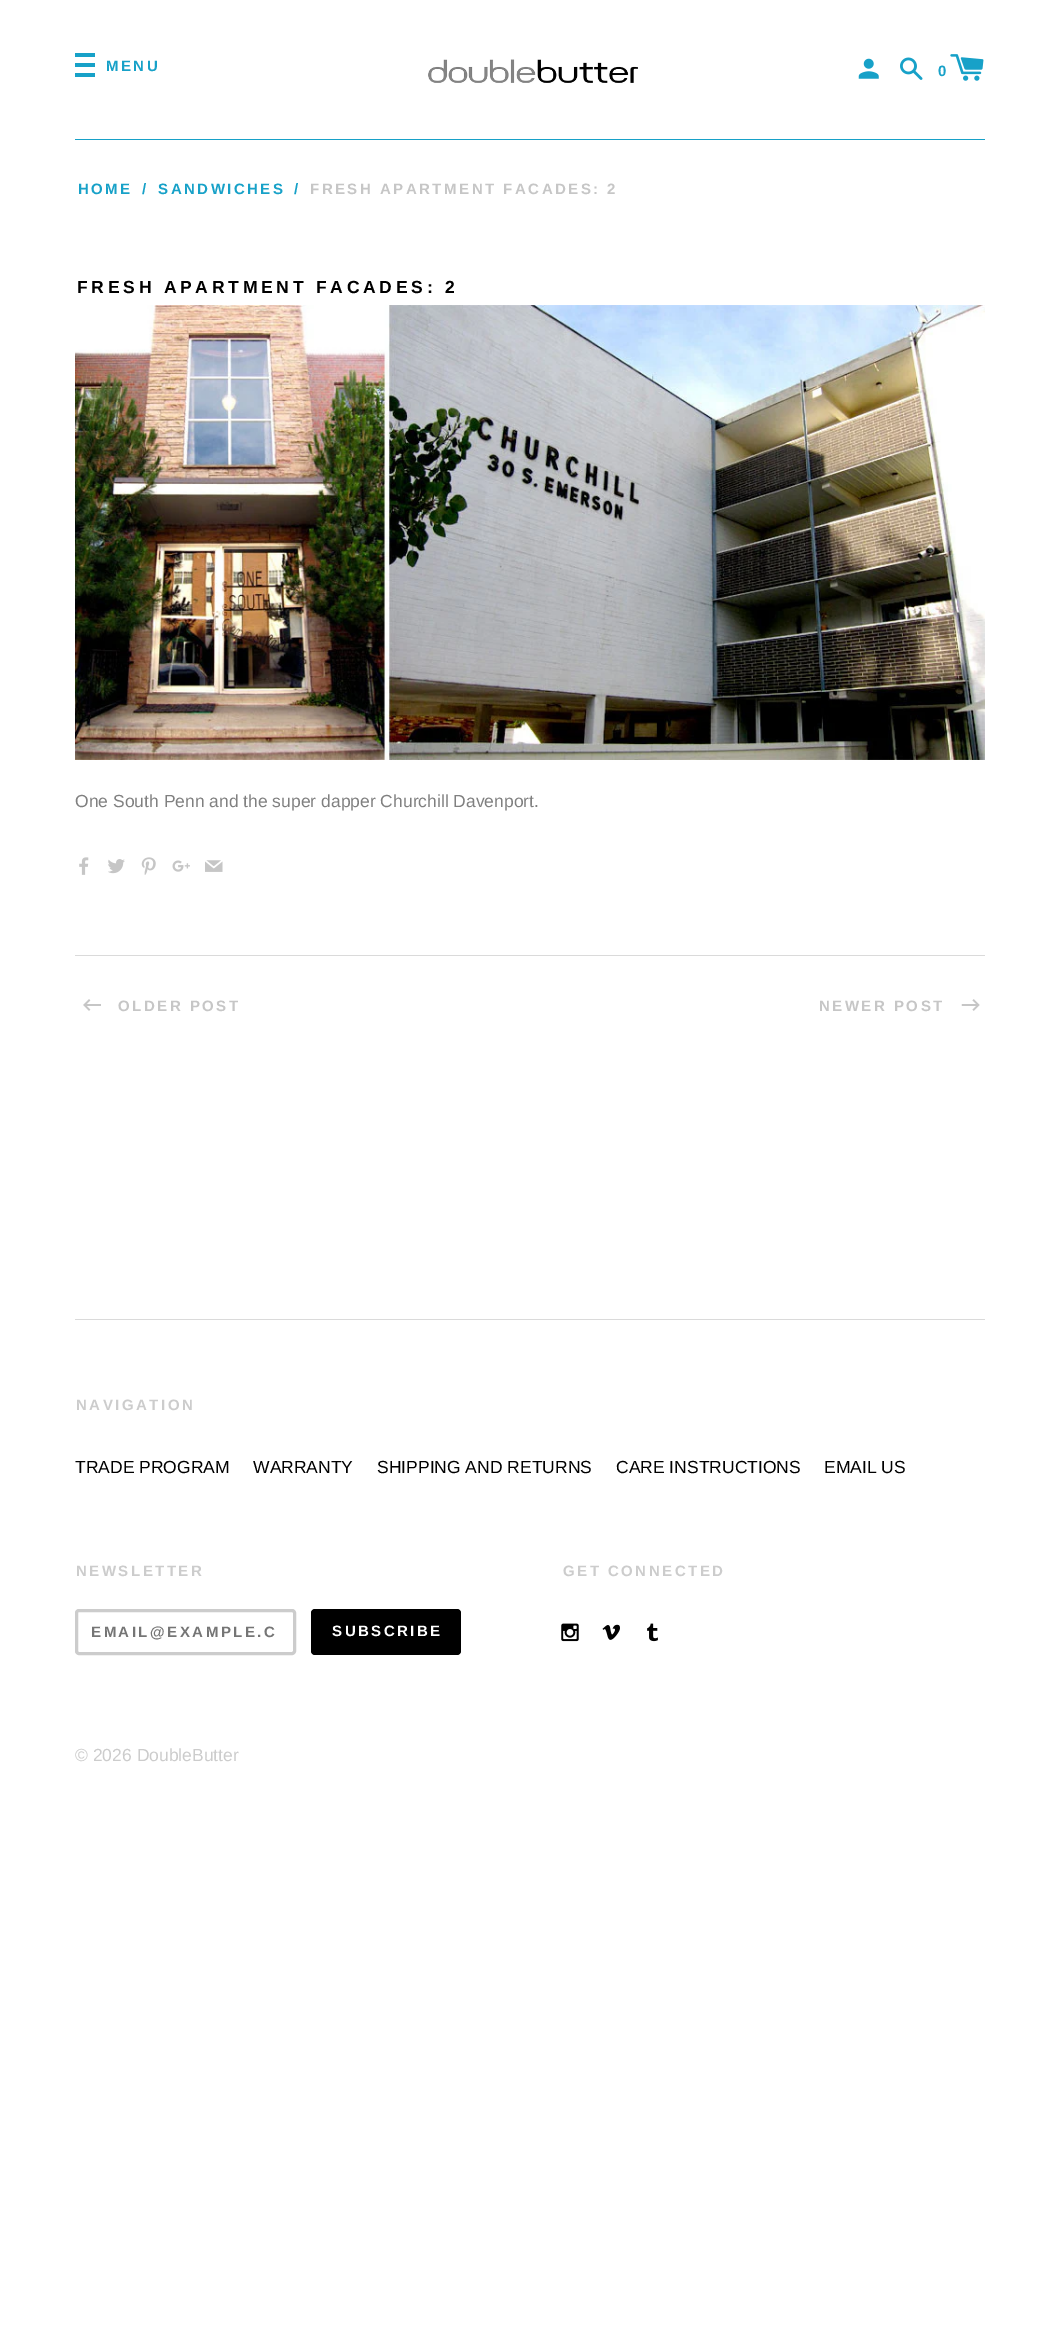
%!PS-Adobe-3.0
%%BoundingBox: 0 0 1060 2325
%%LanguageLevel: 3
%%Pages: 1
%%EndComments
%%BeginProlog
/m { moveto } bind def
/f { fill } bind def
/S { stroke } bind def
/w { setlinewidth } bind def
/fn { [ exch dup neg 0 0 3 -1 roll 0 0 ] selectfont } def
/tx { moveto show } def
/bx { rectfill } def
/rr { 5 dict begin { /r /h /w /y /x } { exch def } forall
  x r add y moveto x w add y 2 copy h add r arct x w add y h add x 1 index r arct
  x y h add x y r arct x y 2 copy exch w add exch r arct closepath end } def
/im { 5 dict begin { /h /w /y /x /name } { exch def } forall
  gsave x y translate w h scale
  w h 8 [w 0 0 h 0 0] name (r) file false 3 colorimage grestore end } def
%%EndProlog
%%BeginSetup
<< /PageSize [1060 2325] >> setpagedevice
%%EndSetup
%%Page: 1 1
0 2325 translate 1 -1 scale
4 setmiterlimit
1 setgray
0 0 1060 2325 bx
0.09 0.631 0.784 setrgbcolor
75 139 910 1 bx
75 53 20 4 bx
75 63 20 4 bx
75 73 20 4 bx
/LiberationSans-Bold 15 fn
106 71 m 2.5 0 (MENU) ashow
(image0.raw) 428 59 210 24 im
(image1.raw) 858 58 21 21 im
(image2.raw) 900 57 23 23 im
(0) 938 76 tx
(image3.raw) 950 54 34 27 im
78 194 m 2.5 0 (HOME) ashow
142 194 m 2.5 0 (/) ashow
158 194 m 2.5 0 (SANDWICHES) ashow
294 194 m 2.5 0 (/) ashow
0.776 setgray
310 194 m 2.5 0 (FRESH APARTMENT FACADES: 2) ashow
/LiberationSans-Bold 17.5 fn
0 setgray
77 293 m 3.75 0 (FRESH APARTMENT FACADES: 2) ashow
(image4.raw) 75 305 910 455 im
/LiberationSans-Regular 17.5 fn
0.502 setgray
(One South Penn and the super dapper Churchill Davenport.) 75 807 tx
(image5.raw) 79 857 10 18 im
(image6.raw) 108 859 17 15 im
(image7.raw) 141 857 15 18 im
(image8.raw) 172 860 18 12 im
(image9.raw) 205 860 18 12 im
0.855 setgray
75 955 910 1 bx
(image10.raw) 83 999 18 12 im
/LiberationSans-Bold 15 fn
0.776 setgray
118 1011 m 2.5 0 (OLDER POST) ashow
819 1011 m 2.5 0 (NEWER POST) ashow
(image11.raw) 961 999 19 12 im
0.855 setgray
75 1319 910 1 bx
0.8 setgray
76 1410 m 2.5 0 (NAVIGATION) ashow
/LiberationSans-Regular 17.5 fn
0 setgray
(TRADE PROGRAM) 75 1473 tx
(WARRANTY) 253 1473 tx
(SHIPPING AND RETURNS) 377 1473 tx
(CARE INSTRUCTIONS) 616 1473 tx
(EMAIL US) 824 1473 tx
/LiberationSans-Bold 15 fn
0.8 setgray
76 1576 m 2.5 0 (NEWSLETTER) ashow
3 w
76.5 1610.5 218 43 2.5 rr S
0.459 setgray
91 1637 m 2.5 0 (EMAIL@EXAMPLE.C) ashow
0 setgray
311 1609 150 46 4 rr f
1 setgray
332 1636 m 2.5 0 (SUBSCRIBE) ashow
0.8 setgray
563 1576 m 2.5 0 (GET CONNECTED) ashow
(image12.raw) 561 1623 18 19 im
(image13.raw) 602 1624 18 16 im
(image14.raw) 647 1623 11 19 im
/LiberationSans-Regular 17.5 fn
(© 2026 DoubleButter) 75 1761 tx
showpage
%%EOF
